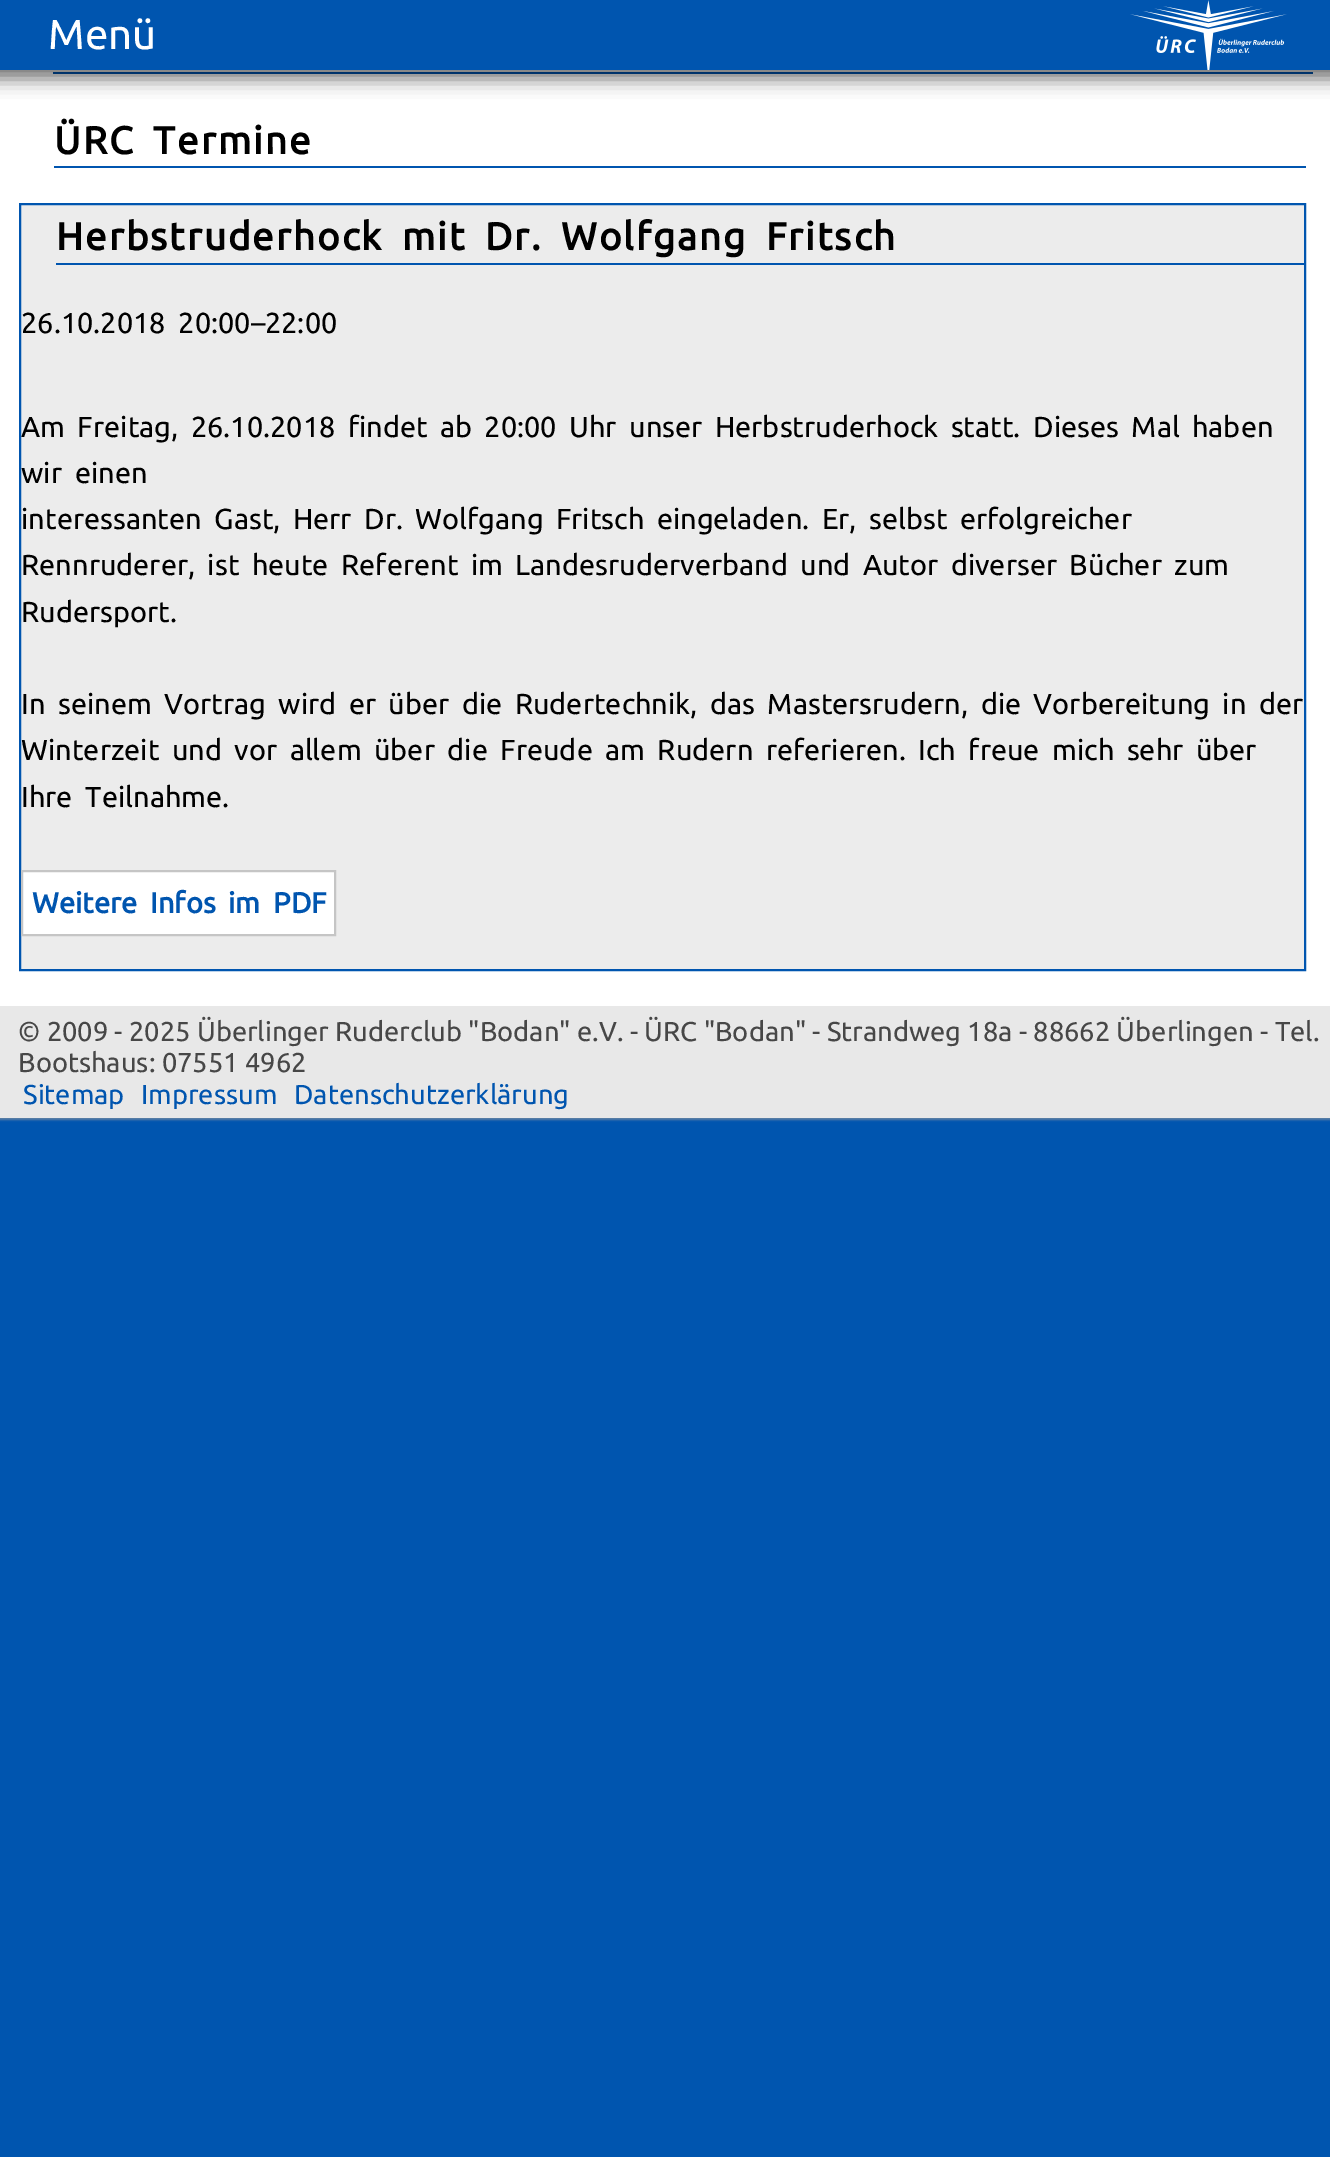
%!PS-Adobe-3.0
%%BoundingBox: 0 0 1330 2157
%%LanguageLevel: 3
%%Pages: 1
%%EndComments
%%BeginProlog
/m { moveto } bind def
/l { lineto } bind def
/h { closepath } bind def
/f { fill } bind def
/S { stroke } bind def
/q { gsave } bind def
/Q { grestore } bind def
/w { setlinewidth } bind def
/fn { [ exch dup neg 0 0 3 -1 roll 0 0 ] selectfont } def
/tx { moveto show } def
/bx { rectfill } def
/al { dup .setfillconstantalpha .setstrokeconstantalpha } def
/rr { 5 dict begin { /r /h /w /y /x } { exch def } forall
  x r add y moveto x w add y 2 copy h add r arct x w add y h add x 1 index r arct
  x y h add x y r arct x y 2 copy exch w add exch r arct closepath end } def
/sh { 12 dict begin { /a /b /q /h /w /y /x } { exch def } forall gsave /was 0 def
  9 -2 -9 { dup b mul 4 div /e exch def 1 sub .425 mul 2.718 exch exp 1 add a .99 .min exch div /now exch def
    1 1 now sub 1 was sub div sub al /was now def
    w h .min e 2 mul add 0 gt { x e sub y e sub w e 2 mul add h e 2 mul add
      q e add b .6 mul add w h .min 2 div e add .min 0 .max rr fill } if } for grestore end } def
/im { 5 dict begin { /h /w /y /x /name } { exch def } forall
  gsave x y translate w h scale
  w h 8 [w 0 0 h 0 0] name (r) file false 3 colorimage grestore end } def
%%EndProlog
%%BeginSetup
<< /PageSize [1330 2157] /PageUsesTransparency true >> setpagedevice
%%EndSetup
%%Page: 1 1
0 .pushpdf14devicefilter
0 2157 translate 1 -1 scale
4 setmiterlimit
0 0.333 0.686 setrgbcolor
0 0 1330 2157 bx
0.612 setgray
-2 1005 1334 115 0 1 0.6 sh
1 setgray
0 70 1330 936 bx
0 0.333 0.686 setrgbcolor
53 72 1260 2 bx
0 setgray
-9 -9 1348 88 0 9 0.55 sh
0 0.333 0.686 setrgbcolor
0 0 1330 70 bx
/Ubuntu-Regular 42 fn
1 setgray
(Menü) 48 49 tx
(image0.raw) 1130 0 157 70 im
0 0.333 0.686 setrgbcolor
54 166 1252 2 bx
/Ubuntu-Bold 38.6 fn
0 setgray
54 154 m 8 0 32 1.95 0 (ÜRC Termine) awidthshow
0.925 setgray
20 204 m 1305 204 l 1305 970 l 20 970 l h q f Q
0 0.333 0.686 setrgbcolor
2 w
S
56 263 1248 2 bx
0 setgray
56 250 m 7.5 0 32 1.95 0 (Herbstruderhock mit Dr. Wolfgang Fritsch) awidthshow
/Ubuntu-Regular 28.9 fn
21 333 m 6 0 32 (26.10.2018 20:00–22:00) widthshow
21 437 m 5.75 0 32 (Am Freitag, 26.10.2018 findet ab 20:00 Uhr unser Herbstruderhock statt. Dieses Mal haben) widthshow
21 483 m 6 0 32 (wir einen) widthshow
21 529 m 5.75 0 32 (interessanten Gast, Herr Dr. Wolfgang Fritsch eingeladen. Er, selbst erfolgreicher) widthshow
21 575 m 5.75 0 32 (Rennruderer, ist heute Referent im Landesruderverband und Autor diverser Bücher zum) widthshow
(Rudersport.) 21 622 tx
21 714 m 5.75 0 32 (In seinem Vortrag wird er über die Rudertechnik, das Mastersrudern, die Vorbereitung in der) widthshow
21 760 m 5.75 0 32 (Winterzeit und vor allem über die Freude am Rudern referieren. Ich freue mich sehr über) widthshow
21 807 m 6 0 32 (Ihre Teilnahme.) widthshow
1 setgray
22 871 m 335 871 l 335 935 l 22 935 l h q f Q
0.773 setgray
S
/Ubuntu-Bold 28.9 fn
0 0.333 0.686 setrgbcolor
32 913 m 6 0 32 (Weitere Infos im PDF) widthshow
0.91 setgray
0 1006 1330 112 bx
/Ubuntu-Regular 27.3 fn
0.278 setgray
(© 2009 - 2025 Überlinger Ruderclub "Bodan" e.V. - ÜRC "Bodan" - Strandweg 18a - 88662 Überlingen - Tel.) 18 1041 tx
(Bootshaus: 07551 4962) 18 1072 tx
0 0.333 0.686 setrgbcolor
(Sitemap) 23 1104 tx
(Impressum) 141 1104 tx
(Datenschutzerklärung) 294 1104 tx
.poppdf14devicefilter showpage
%%EOF
